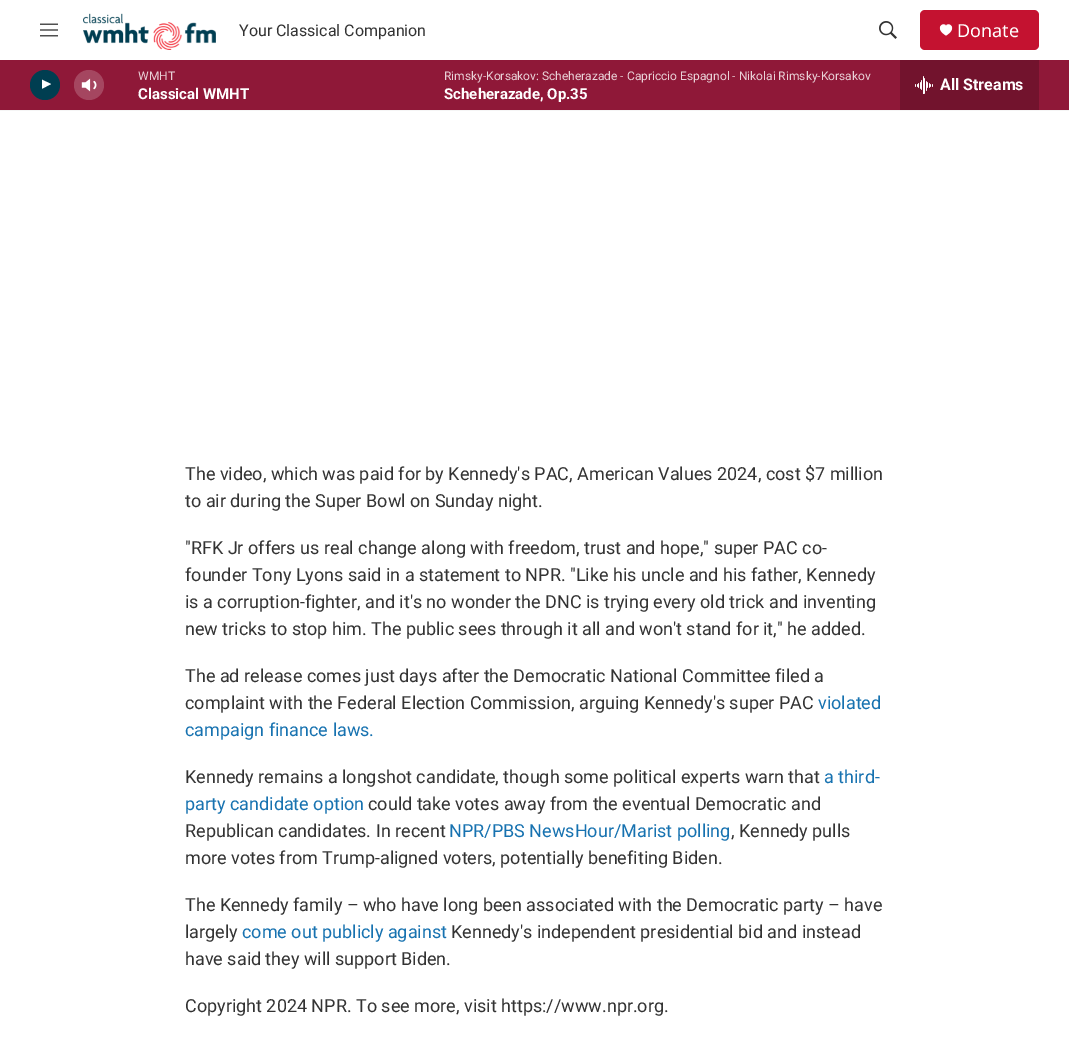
%!PS-Adobe-3.0
%%BoundingBox: 0 0 1069 1050
%%LanguageLevel: 3
%%Pages: 1
%%EndComments
%%BeginProlog
/m { moveto } bind def
/l { lineto } bind def
/c { curveto } bind def
/h { closepath } bind def
/f { fill } bind def
/q { gsave } bind def
/Q { grestore } bind def
/fn { [ exch dup neg 0 0 3 -1 roll 0 0 ] selectfont } def
/tx { moveto show } def
/bx { rectfill } def
/al { dup .setfillconstantalpha .setstrokeconstantalpha } def
/ci { newpath 0 360 arc closepath } def
/rr { 5 dict begin { /r /h /w /y /x } { exch def } forall
  x r add y moveto x w add y 2 copy h add r arct x w add y h add x 1 index r arct
  x y h add x y r arct x y 2 copy exch w add exch r arct closepath end } def
/im { 5 dict begin { /h /w /y /x /name } { exch def } forall
  gsave x y translate w h scale
  w h 8 [w 0 0 h 0 0] name (r) file false 3 colorimage grestore end } def
%%EndProlog
%%BeginSetup
<< /PageSize [1069 1050] /PageUsesTransparency true >> setpagedevice
%%EndSetup
%%Page: 1 1
0 .pushpdf14devicefilter
0 1050 translate 1 -1 scale
4 setmiterlimit
1 setgray
0 0 1069 1050 bx
0.961 setgray
0 110 1069 1 bx
(image0.raw) 40 23 18 14 im
(image1.raw) 83 13 133 37 im
/Roboto-Regular 16 fn
0.2 setgray
(Your Classical Companion) 239 36 tx
(image2.raw) 879 21 18 18 im
0.769 0.071 0.188 setrgbcolor
920 10 119 40 5 rr f
1 setgray
946 26 m 944 21 933.5 28 946 35.5 c 958.5 28 948 21 946 26 c h f
/NotoSans-Regular 18 fn
(Donate) 957 37 tx
0.561 0.094 0.22 setrgbcolor
0 60 1069 50 bx
0 0.243 0.318 setrgbcolor
45 85 15 ci f
q
42 78 12 15 rectclip
1 setgray
41.5 79.5 m 51 84 l 41.5 89 l h f
Q
(image3.raw) 81 78 16 14 im
0.2 al
1 setgray
89 85 15 ci f
/Roboto-Regular 12 fn
1 al
0.914 0.82 0.843 setrgbcolor
(WMHT) 138 80 tx
/Roboto-Bold 15 fn
1 setgray
(Classical WMHT) 138 99 tx
/Roboto-Regular 12 fn
0.914 0.82 0.843 setrgbcolor
(Rimsky-Korsakov: Scheherazade - Capriccio Espagnol - Nikolai Rimsky-Korsakov) 444 80 tx
/Roboto-Bold 15 fn
1 setgray
(Scheherazade, Op.35) 444 99 tx
0.447 0.075 0.176 setrgbcolor
900 60 139 50 bx
(image4.raw) 915 76 18 18 im
/Roboto-Bold 16 fn
1 setgray
(All Streams) 940 90 tx
/Roboto-Regular 18 fn
0.2 setgray
(The video, which was paid for by Kennedy's PAC, American Values 2024, cost $7 million) 185 480 tx
(to air during the Super Bowl on Sunday night.) 185 507 tx
("RFK Jr offers us real change along with freedom, trust and hope," super PAC co-) 185 554 tx
(founder Tony Lyons said in a statement to NPR. "Like his uncle and his father, Kennedy) 185 581 tx
(is a corruption-fighter, and it's no wonder the DNC is trying every old trick and inventing) 185 608 tx
(new tricks to stop him. The public sees through it all and won't stand for it," he added.) 185 635 tx
(The ad release comes just days after the Democratic National Committee filed a) 185 682 tx
(complaint with the Federal Election Commission, arguing Kennedy's super PAC) 185 709 tx
0.09 0.447 0.69 setrgbcolor
(violated) 818 709 tx
(campaign finance laws.) 185 736 tx
0.2 setgray
(Kennedy remains a longshot candidate, though some political experts warn that) 185 783 tx
0.09 0.447 0.69 setrgbcolor
(a third-) 824 783 tx
(party candidate option) 185 810 tx
0.2 setgray
(could take votes away from the eventual Democratic and) 368 810 tx
(Republican candidates. In recent) 185 837 tx
0.09 0.447 0.69 setrgbcolor
(NPR/PBS NewsHour/Marist polling) 449 837 tx
0.2 setgray
(, Kennedy pulls) 731 837 tx
(more votes from Trump-aligned voters, potentially benefiting Biden.) 185 864 tx
(The Kennedy family – who have long been associated with the Democratic party – have) 185 911 tx
(largely) 185 938 tx
0.09 0.447 0.69 setrgbcolor
(come out publicly against) 242 938 tx
0.2 setgray
(Kennedy's independent presidential bid and instead) 451 938 tx
(have said they will support Biden.) 185 965 tx
(Copyright 2024 NPR. To see more, visit https://www.npr.org.) 185 1012 tx
.poppdf14devicefilter showpage
%%EOF
